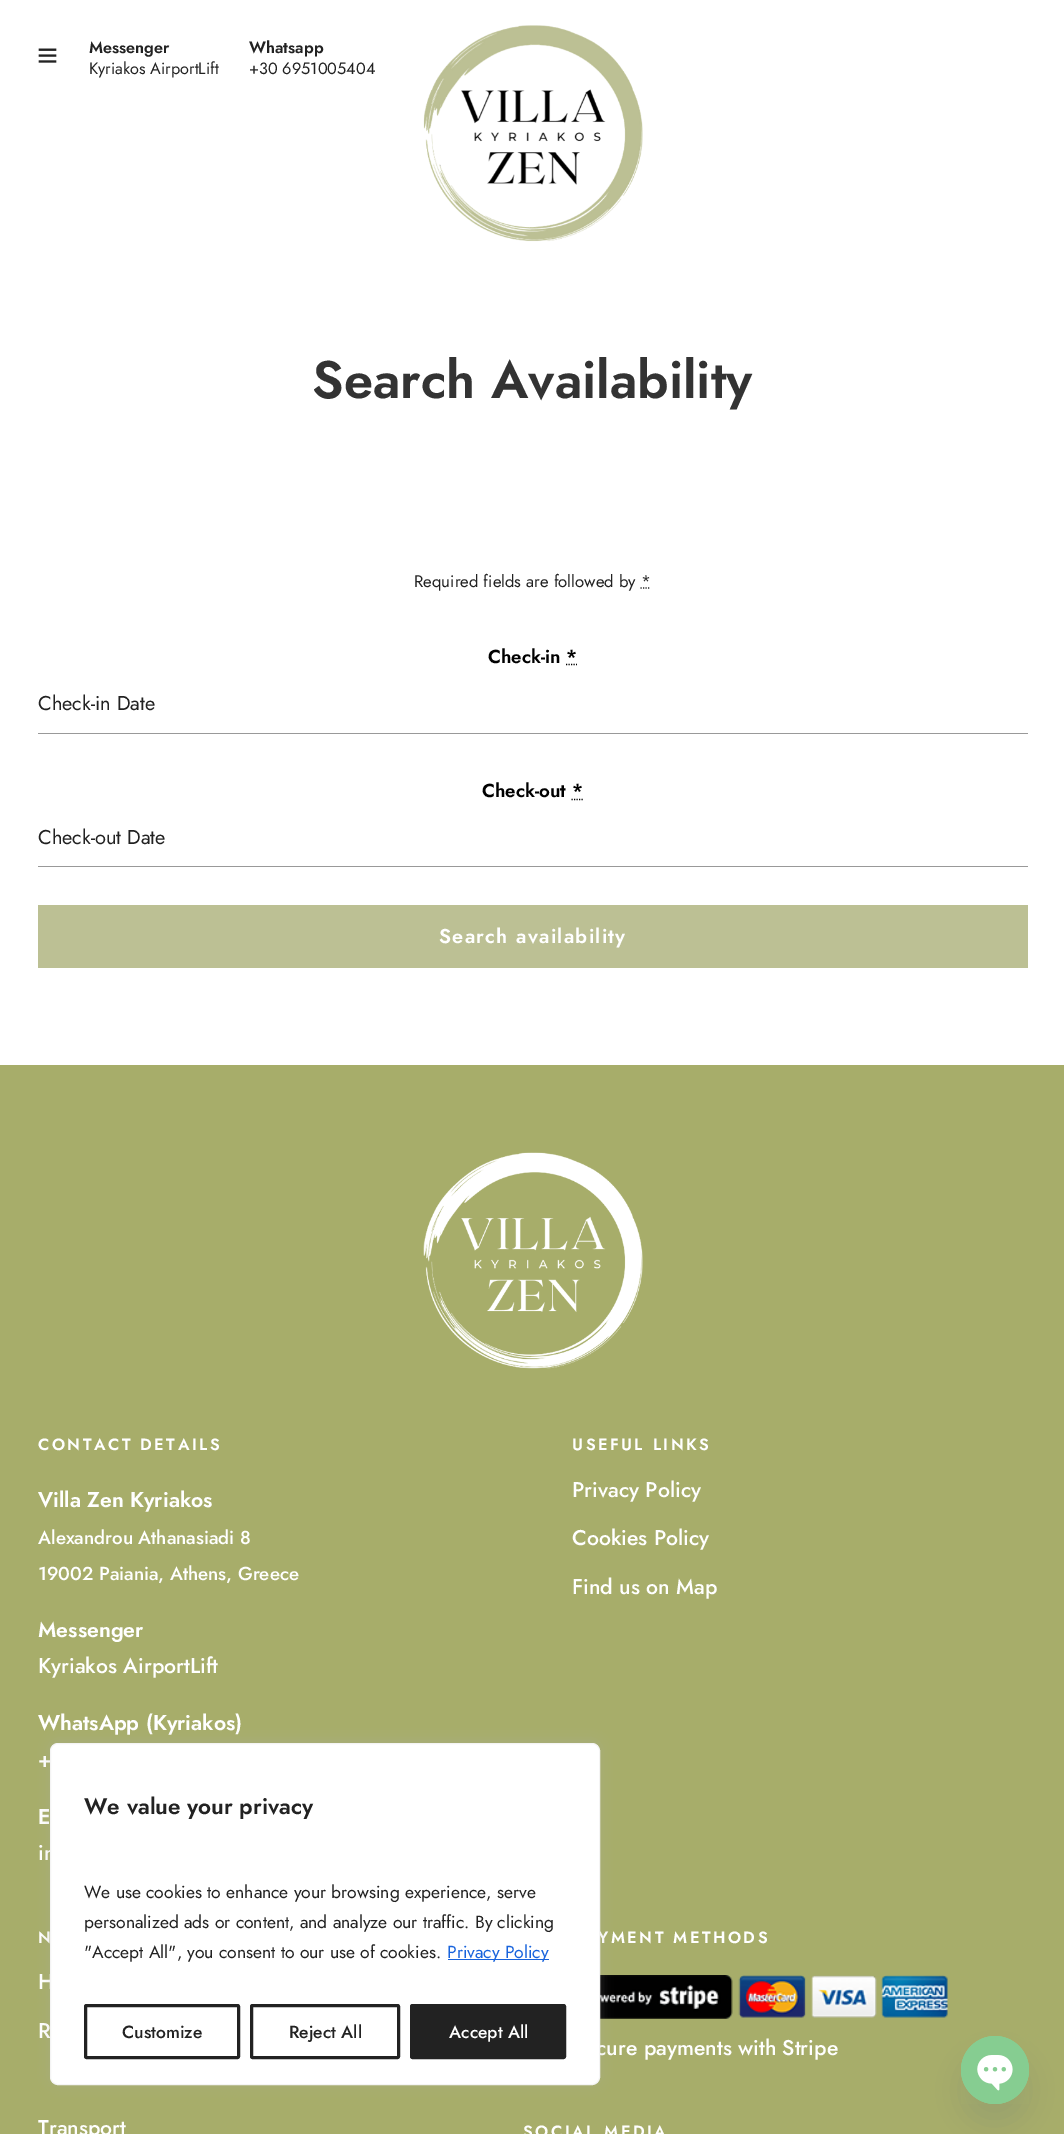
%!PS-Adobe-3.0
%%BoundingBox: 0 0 1064 2134
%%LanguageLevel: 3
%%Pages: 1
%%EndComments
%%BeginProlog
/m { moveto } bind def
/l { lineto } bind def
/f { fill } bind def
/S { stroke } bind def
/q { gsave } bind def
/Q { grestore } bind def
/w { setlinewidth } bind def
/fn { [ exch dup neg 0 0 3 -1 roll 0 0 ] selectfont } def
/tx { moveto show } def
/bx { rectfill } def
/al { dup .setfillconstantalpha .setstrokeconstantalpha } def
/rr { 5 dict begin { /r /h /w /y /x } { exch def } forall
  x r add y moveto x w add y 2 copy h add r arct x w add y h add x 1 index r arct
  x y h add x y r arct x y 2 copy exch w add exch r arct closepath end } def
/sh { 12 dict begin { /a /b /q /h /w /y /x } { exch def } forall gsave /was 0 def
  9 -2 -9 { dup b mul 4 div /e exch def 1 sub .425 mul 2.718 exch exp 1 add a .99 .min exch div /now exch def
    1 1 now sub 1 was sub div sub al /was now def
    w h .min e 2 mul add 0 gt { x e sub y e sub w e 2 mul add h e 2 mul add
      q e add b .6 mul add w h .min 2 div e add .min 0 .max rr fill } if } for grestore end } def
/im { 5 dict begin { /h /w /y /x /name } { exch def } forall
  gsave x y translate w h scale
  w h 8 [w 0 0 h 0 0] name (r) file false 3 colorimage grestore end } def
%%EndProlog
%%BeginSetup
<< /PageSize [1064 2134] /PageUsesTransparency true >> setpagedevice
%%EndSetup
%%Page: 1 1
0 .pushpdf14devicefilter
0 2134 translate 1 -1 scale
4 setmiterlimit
1 setgray
0 0 1064 2134 bx
(image0.raw) 38 48 19 15 im
/Jost-SemiBold 16.25 fn
0.133 setgray
(Messenger) 89 53 tx
/Jost-Regular 16.25 fn
(Kyriakos AirportLift) 89 74 tx
/Jost-SemiBold 16.25 fn
(Whatsapp) 249 53 tx
/Jost-Regular 16.25 fn
(+30 6951005404) 249 74 tx
(image1.raw) 423 25 220 217 im
/Jost-SemiBold 52.5 fn
0.2 setgray
(Search Availability) 312 398 tx
/Jost-Regular 16.7 fn
0.133 setgray
(Required fields are followed by *) 414 587 tx
1.2 w
[1.25 1.25] 0 setdash
640.5 588 m 650.5 588 l S
/Jost-SemiBold 18.75 fn
0 setgray
(Check-in *) 488 663 tx
566 664.5 m 577 664.5 l S
0.6 setgray
38 733 990 1 bx
/Jost-Regular 20 fn
0.133 setgray
(Check-in Date) 38 710 tx
/Jost-SemiBold 18.75 fn
0 setgray
(Check-out *) 482 797 tx
571.5 799.5 m 583 799.5 l S
0.6 setgray
38 866 990 1 bx
/Jost-Regular 20 fn
0.133 setgray
(Check-out Date) 38 844 tx
0.737 0.753 0.58 setrgbcolor
38 905 990 63 bx
/Jost-SemiBold 20 fn
1 setgray
439 943 m 1.25 0 (Search availability) ashow
0.655 0.678 0.416 setrgbcolor
0 1065 1064 1069 bx
(image2.raw) 423 1152 220 217 im
/Jost-SemiBold 16.25 fn
1 setgray
38 1450 m 2.5 0 (CONTACT DETAILS) ashow
/Jost-SemiBold 21.25 fn
(Villa Zen Kyriakos) 38 1507 tx
/Jost-Medium 18.75 fn
(Alexandrou Athanasiadi 8) 38 1544 tx
(19002 Paiania, Athens, Greece) 38 1580 tx
/Jost-SemiBold 21.25 fn
(Messenger) 38 1637 tx
/Jost-Medium 21.25 fn
(Kyriakos AirportLift) 38 1673 tx
/Jost-SemiBold 21.25 fn
(WhatsApp \(Kyriakos\)) 38 1730 tx
/Jost-Medium 21.25 fn
(+) 38 1767 tx
/Jost-SemiBold 21.25 fn
(E) 38 1824 tx
/Jost-Medium 21.25 fn
(in) 38 1860 tx
/Jost-SemiBold 16.25 fn
572 1450 m 2.5 0 (USEFUL LINKS) ashow
/Jost-Medium 21.25 fn
(Privacy Policy) 572 1497 tx
(Cookies Policy) 572 1545 tx
(Find us on Map) 572 1594 tx
/Jost-SemiBold 16.25 fn
38 1943 m 2.5 0 (N) ashow
/Jost-Medium 21.25 fn
(H) 38 1989 tx
(R) 38 2038 tx
(Transport) 38 2135 tx
/Jost-SemiBold 16.25 fn
598 1943 m 2.5 0 (YMENT METHODS) ashow
(image3.raw) 600 1975 348 44 im
/Jost-Medium 21.25 fn
(cure payments with Stripe) 596 2055 tx
/Jost-SemiBold 16.25 fn
523 2137 m 2.5 0 (SOCIAL MEDIA) ashow
0.675 0.671 0.671 setrgbcolor
50 1741 550 343 8 6 0.3 sh
1 setgray
50.5 1743.5 549 341 7.5 rr q f Q
0.957 setgray
1 w
[] 0 setdash
S
/Jost-SemiBold 22.5 fn
0.133 setgray
(We value your privacy) 84 1814 tx
/Jost-Regular 17.5 fn
(We use cookies to enhance your browsing experience, serve) 84 1898 tx
(personalized ads or content, and analyze our traffic. By clicking) 84 1928 tx
("Accept All", you consent to our use of cookies.) 84 1958 tx
0.094 0.388 0.863 setrgbcolor
448 1959 101 1 bx
(Privacy Policy) 447 1958 tx
0.133 setgray
3 w
85.5 2005.5 153 52 1 rr S
/Jost-Medium 17.5 fn
(Customize) 122 2038 tx
251.5 2005.5 147 52 1 rr S
(Reject All) 289 2038 tx
411.5 2005.5 153 52 1 rr q f Q
S
1 setgray
(Accept All) 449 2038 tx
0.286 0.408 0.494 setrgbcolor
961 2056 68 68 34 15 0.16 sh
(image4.raw) 961 2036 68 68 im
.poppdf14devicefilter showpage
%%EOF
